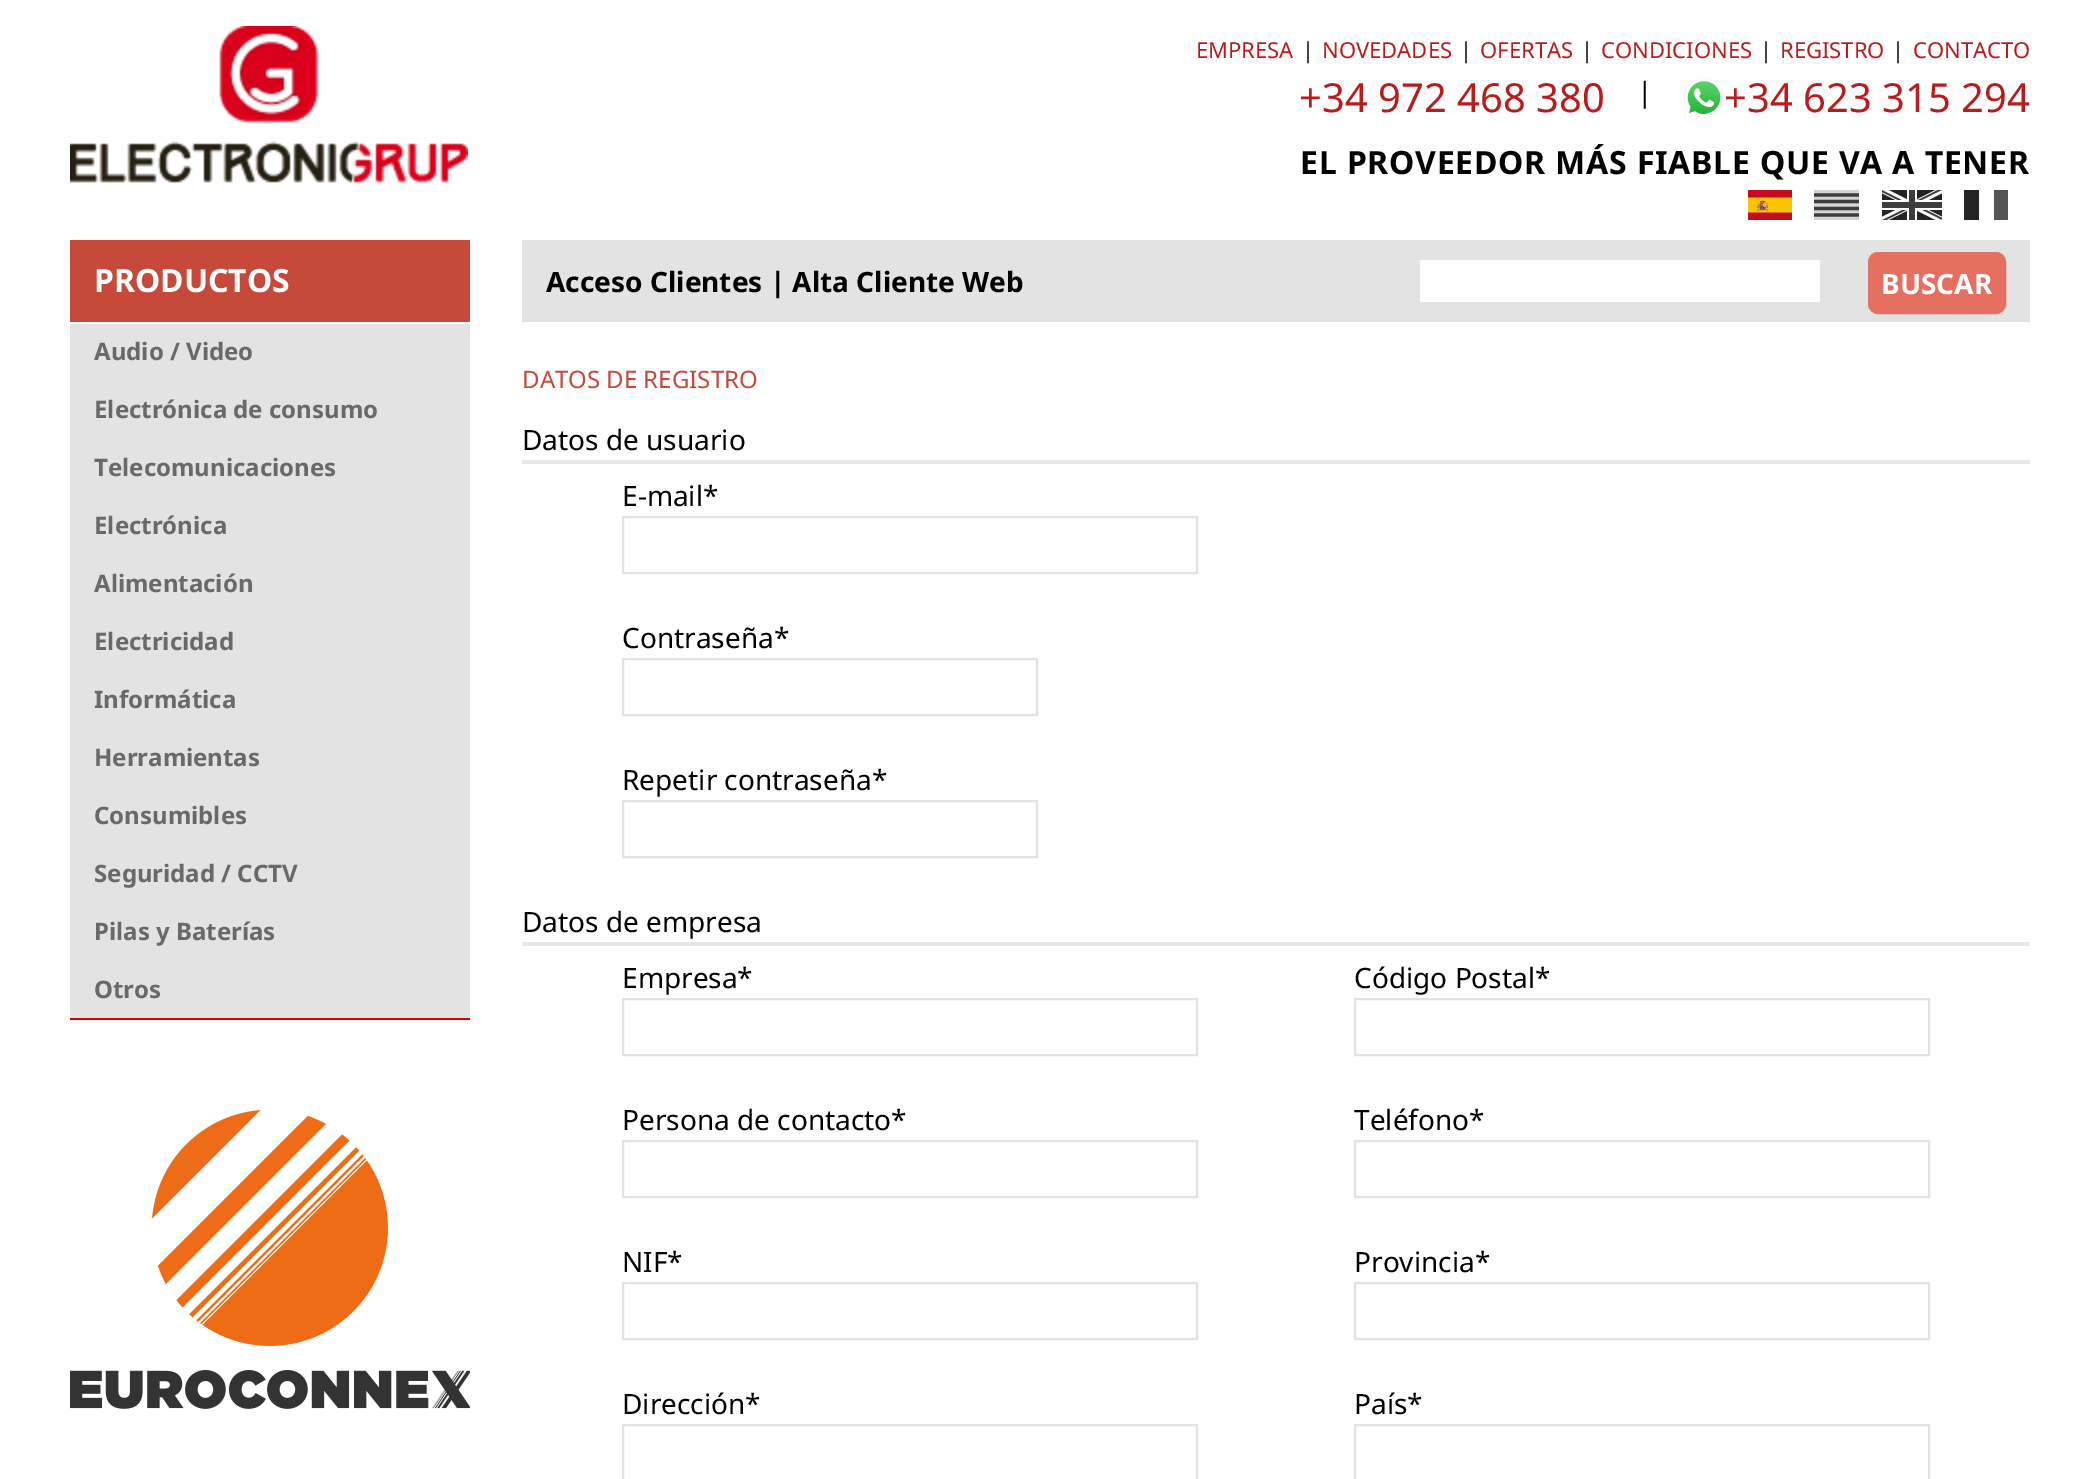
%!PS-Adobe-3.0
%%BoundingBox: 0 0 2099 1479
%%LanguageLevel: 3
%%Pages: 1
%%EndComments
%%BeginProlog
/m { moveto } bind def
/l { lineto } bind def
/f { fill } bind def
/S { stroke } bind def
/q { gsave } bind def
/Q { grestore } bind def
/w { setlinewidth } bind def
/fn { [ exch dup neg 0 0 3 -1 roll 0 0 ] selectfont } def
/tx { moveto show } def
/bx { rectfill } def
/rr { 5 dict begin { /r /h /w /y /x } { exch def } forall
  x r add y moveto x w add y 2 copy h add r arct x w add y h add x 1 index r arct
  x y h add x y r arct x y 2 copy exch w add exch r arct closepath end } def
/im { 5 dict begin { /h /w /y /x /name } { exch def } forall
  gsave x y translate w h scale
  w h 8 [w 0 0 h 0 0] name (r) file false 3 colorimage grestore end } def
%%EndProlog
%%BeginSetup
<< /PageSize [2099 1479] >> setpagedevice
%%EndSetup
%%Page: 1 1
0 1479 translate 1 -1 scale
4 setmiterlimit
1 setgray
0 0 2099 1479 bx
(image0.raw) 70 26 398 158 im
/NotoSans-Regular 22 fn
0.725 0.11 0.11 setrgbcolor
(EMPRESA) 1196 58 tx
0.012 0.008 0.008 setrgbcolor
(|) 1302 58 tx
0.725 0.11 0.11 setrgbcolor
(NOVEDADES) 1322 58 tx
0.012 0.008 0.008 setrgbcolor
(|) 1460 58 tx
0.725 0.11 0.11 setrgbcolor
(OFERTAS) 1480 58 tx
0.012 0.008 0.008 setrgbcolor
(|) 1581 58 tx
0.725 0.11 0.11 setrgbcolor
(CONDICIONES) 1601 58 tx
0.012 0.008 0.008 setrgbcolor
(|) 1760 58 tx
0.725 0.11 0.11 setrgbcolor
(REGISTRO) 1780 58 tx
0.012 0.008 0.008 setrgbcolor
(|) 1892 58 tx
0.725 0.11 0.11 setrgbcolor
(CONTACTO) 1913 58 tx
/NotoSans-Regular 40 fn
(+34 972 468 380) 1299 112 tx
/NotoSans-Regular 28 fn
0.012 0.008 0.008 setrgbcolor
(|) 1637 102 tx
(image1.raw) 1684 78 40 40 im
/NotoSans-Regular 40 fn
0.725 0.11 0.11 setrgbcolor
(+34 623 315 294) 1724 112 tx
/NotoSans-Bold 32 fn
0.012 0.008 0.008 setrgbcolor
1300 174 m 0.8 0 (EL PROVEEDOR MÁS FIABLE QUE VA A TENER) ashow
(image2.raw) 1748 190 44 30 im
0.831 setgray
1814 190 45 30 bx
0.239 setgray
3.3 w
1814 195 m 1859 195 l 1859 201.5 m 1814 201.5 l 1814 208.5 m 1859 208.5 l 1859 215 m 1814 215 l S
(image3.raw) 1882 190 60 30 im
0.329 setgray
1994 190 14 30 bx
0.141 setgray
1964 190 15 30 bx
0.78 0.286 0.227 setrgbcolor
70 240 400 82 bx
1 setgray
(PRODUCTOS) 94 292 tx
0.839 0.008 0.004 setrgbcolor
70 1018 400 2 bx
0.89 setgray
70 324 400 58 bx
/NotoSans-Bold 24 fn
0.412 setgray
(Audio / Video) 94 360 tx
0.89 setgray
70 382 400 58 bx
0.412 setgray
(Electrónica de consumo) 94 418 tx
0.89 setgray
70 440 400 58 bx
0.412 setgray
(Telecomunicaciones) 94 476 tx
0.89 setgray
70 498 400 58 bx
0.412 setgray
(Electrónica) 94 534 tx
0.89 setgray
70 556 400 58 bx
0.412 setgray
(Alimentación) 94 592 tx
0.89 setgray
70 614 400 58 bx
0.412 setgray
(Electricidad) 94 650 tx
0.89 setgray
70 672 400 58 bx
0.412 setgray
(Informática) 94 708 tx
0.89 setgray
70 730 400 58 bx
0.412 setgray
(Herramientas) 94 766 tx
0.89 setgray
70 788 400 58 bx
0.412 setgray
(Consumibles) 94 824 tx
0.89 setgray
70 846 400 58 bx
0.412 setgray
(Seguridad / CCTV) 94 882 tx
0.89 setgray
70 904 400 58 bx
0.412 setgray
(Pilas y Baterías) 94 940 tx
0.89 setgray
70 962 400 56 bx
0.412 setgray
(Otros) 94 998 tx
(image4.raw) 70 1110 400 299 im
0.89 setgray
522 240 1508 82 bx
/NotoSans-Bold 28 fn
0.012 0.008 0.008 setrgbcolor
(Acceso Clientes | Alta Cliente Web) 546 292 tx
1 setgray
1420 260 400 42 bx
0.898 0.439 0.38 setrgbcolor
1869 253 136 60 9 rr q f Q
2 w
S
1 setgray
(BUSCAR) 1881 294 tx
/NotoSans-Regular 24 fn
0.78 0.286 0.227 setrgbcolor
(DATOS DE REGISTRO) 522 388 tx
/NotoSans-Regular 28 fn
0.012 0.008 0.008 setrgbcolor
(Datos de usuario) 522 450 tx
0.898 0.906 0.922 setrgbcolor
522 460 1508 4 bx
0.012 0.008 0.008 setrgbcolor
(E-mail*) 622 506 tx
0.89 setgray
623 517 574 56 rectstroke
0.012 0.008 0.008 setrgbcolor
(Contraseña*) 622 648 tx
0.89 setgray
623 659 414 56 rectstroke
0.012 0.008 0.008 setrgbcolor
(Repetir contraseña*) 622 790 tx
0.89 setgray
623 801 414 56 rectstroke
0.012 0.008 0.008 setrgbcolor
(Datos de empresa) 522 932 tx
0.898 0.906 0.922 setrgbcolor
522 942 1508 4 bx
0.012 0.008 0.008 setrgbcolor
(Empresa*) 622 988 tx
0.89 setgray
623 999 574 56 rectstroke
0.012 0.008 0.008 setrgbcolor
(Persona de contacto*) 622 1130 tx
0.89 setgray
623 1141 574 56 rectstroke
0.012 0.008 0.008 setrgbcolor
(NIF*) 622 1272 tx
0.89 setgray
623 1283 574 56 rectstroke
0.012 0.008 0.008 setrgbcolor
(Dirección*) 622 1414 tx
0.89 setgray
623 1425 574 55 rectstroke
0.012 0.008 0.008 setrgbcolor
(Código Postal*) 1354 988 tx
0.89 setgray
1355 999 574 56 rectstroke
0.012 0.008 0.008 setrgbcolor
(Teléfono*) 1354 1130 tx
0.89 setgray
1355 1141 574 56 rectstroke
0.012 0.008 0.008 setrgbcolor
(Provincia*) 1354 1272 tx
0.89 setgray
1355 1283 574 56 rectstroke
0.012 0.008 0.008 setrgbcolor
(País*) 1354 1414 tx
0.89 setgray
1355 1425 574 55 rectstroke
showpage
%%EOF
